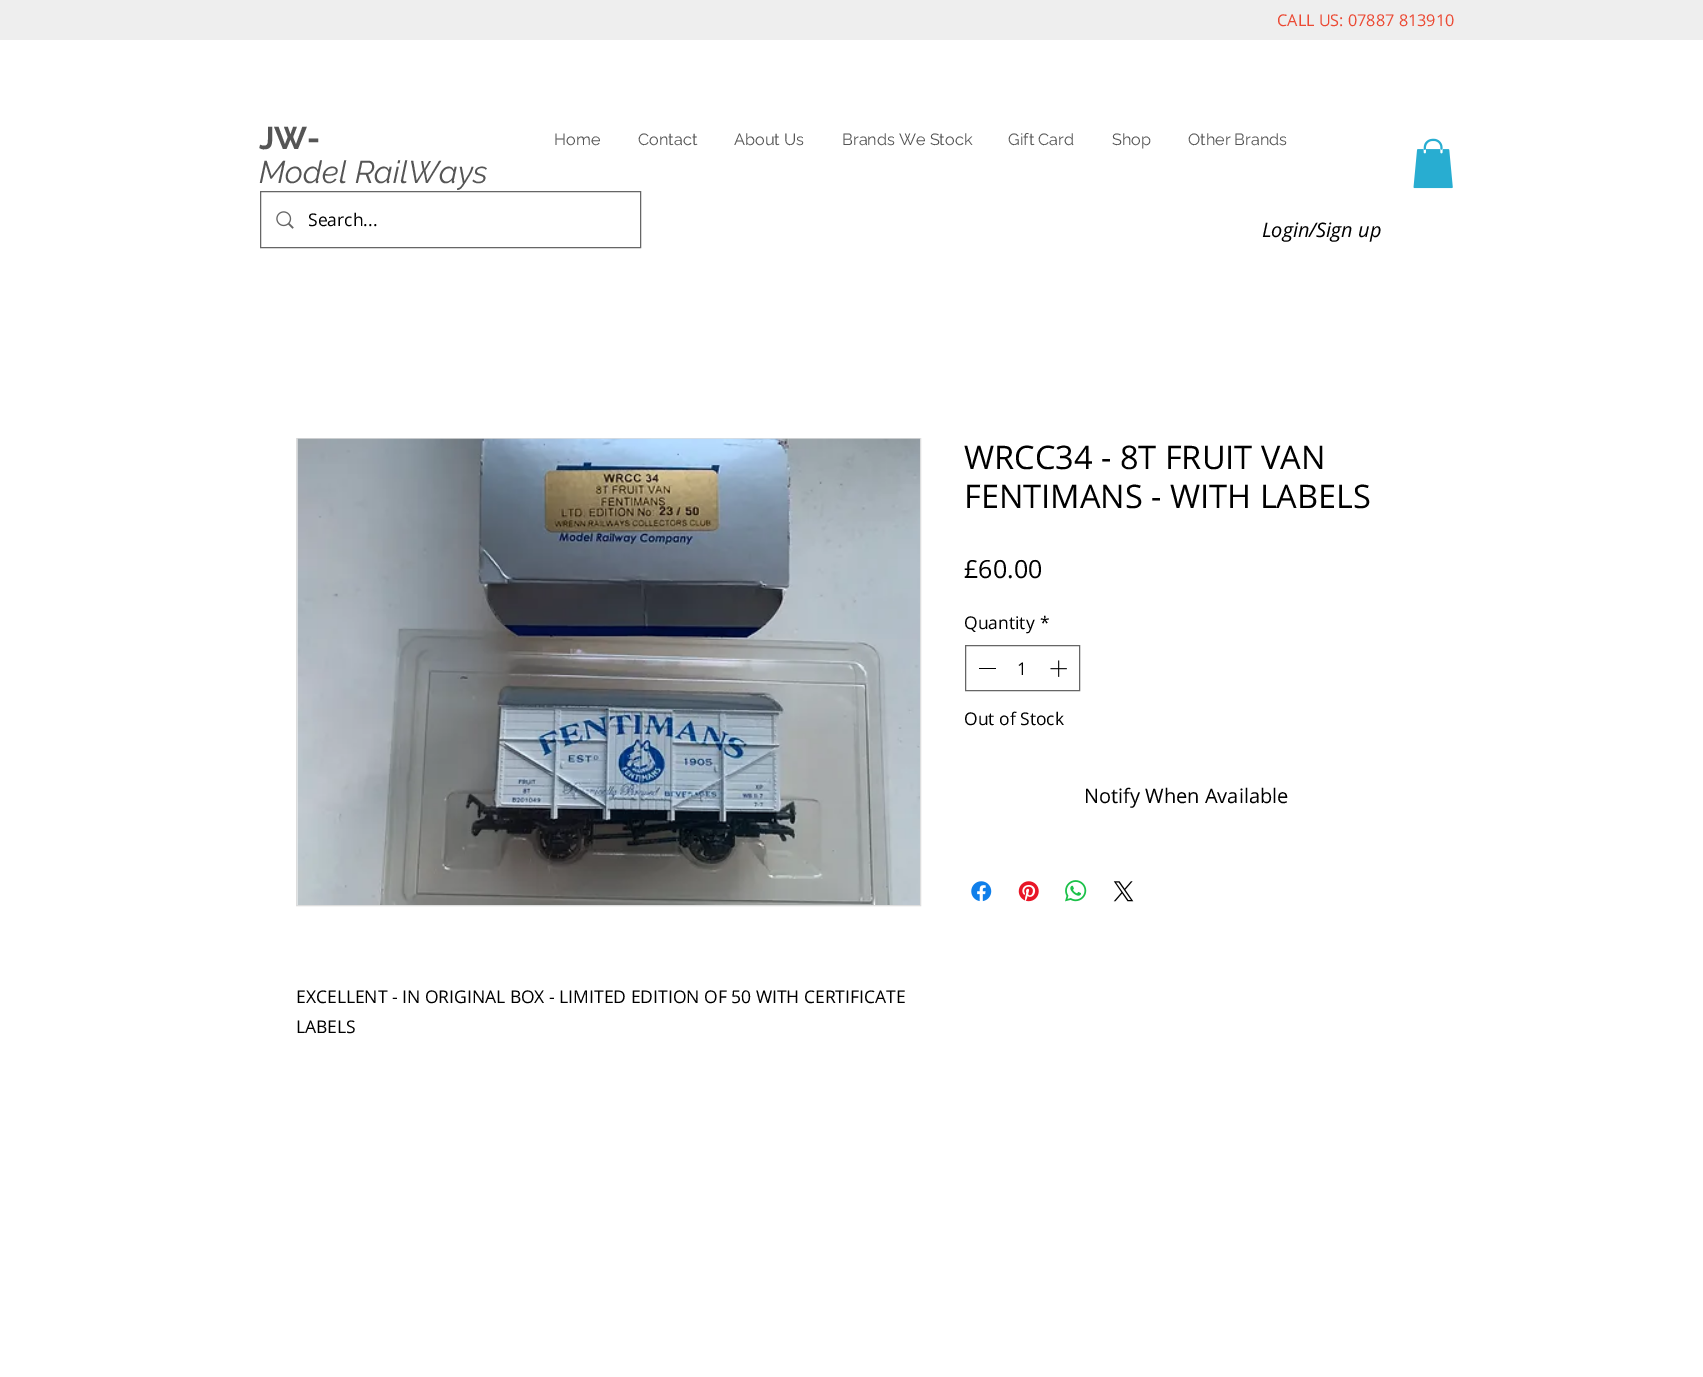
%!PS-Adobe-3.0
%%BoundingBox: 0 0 1703 1377
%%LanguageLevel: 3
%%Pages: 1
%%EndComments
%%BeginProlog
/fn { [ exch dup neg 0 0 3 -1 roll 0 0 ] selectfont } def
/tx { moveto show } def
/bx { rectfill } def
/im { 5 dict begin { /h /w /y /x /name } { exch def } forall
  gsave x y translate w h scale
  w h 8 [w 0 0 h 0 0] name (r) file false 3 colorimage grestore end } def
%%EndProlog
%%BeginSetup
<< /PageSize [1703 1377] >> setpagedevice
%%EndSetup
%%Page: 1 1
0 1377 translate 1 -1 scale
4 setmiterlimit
1 setgray
0 0 1703 1377 bx
0.933 setgray
0 0 1703 40 bx
/OpenSans-Regular 16.25 fn
0.925 0.29 0.204 setrgbcolor
(CALL US: 07887 813910) 1277 26 tx
/Raleway-Bold 31.25 fn
0.333 setgray
(JW-) 259 149 tx
/Raleway-Italic 31.25 fn
(Model RailWays) 259 183 tx
/Raleway-Regular 16.25 fn
(Home) 554 145 tx
(Contact) 638 145 tx
(About Us) 734 145 tx
(Brands We Stock) 842 145 tx
(Gift Card) 1008 145 tx
(Shop) 1112 145 tx
(Other Brands) 1188 145 tx
(image0.raw) 1413 138 40 51 im
0.4 setgray
260.5 191.5 380 56 rectstroke
(image1.raw) 276 211 18 18 im
/OpenSans-Regular 17.5 fn
0 setgray
(Search...) 308 226 tx
/OpenSans-Italic 20 fn
(Login/Sign up) 1262 237 tx
/OpenSans-Regular 32.5 fn
(WRCC34 - 8T FRUIT VAN) 964 469 tx
(FENTIMANS - WITH LABELS) 964 508 tx
/OpenSans-Regular 25 fn
(£60.00) 964 578 tx
/OpenSans-Regular 17.5 fn
(Quantity) 964 629 tx
(*) 1040 629 tx
0.4 setgray
965.5 645.5 114 45 rectstroke
0 setgray
979 668 17 1 bx
(1) 1017 675 tx
(image2.raw) 1050 660 17 17 im
(Out of Stock) 964 725 tx
/OpenSans-Regular 20 fn
(Notify When Available) 1084 803 tx
(image3.raw) 971 881 21 21 im
(image4.raw) 1018 881 21 21 im
(image5.raw) 1065 880 22 22 im
(image6.raw) 1113 881 21 21 im
0.867 setgray
296.5 438.5 624 467 rectstroke
(image7.raw) 297 438 623 467 im
/OpenSans-Regular 17.5 fn
0 setgray
(EXCELLENT - IN ORIGINAL BOX - LIMITED EDITION OF 50 WITH CERTIFICATE) 296 1003 tx
(LABELS) 296 1033 tx
showpage
%%EOF
